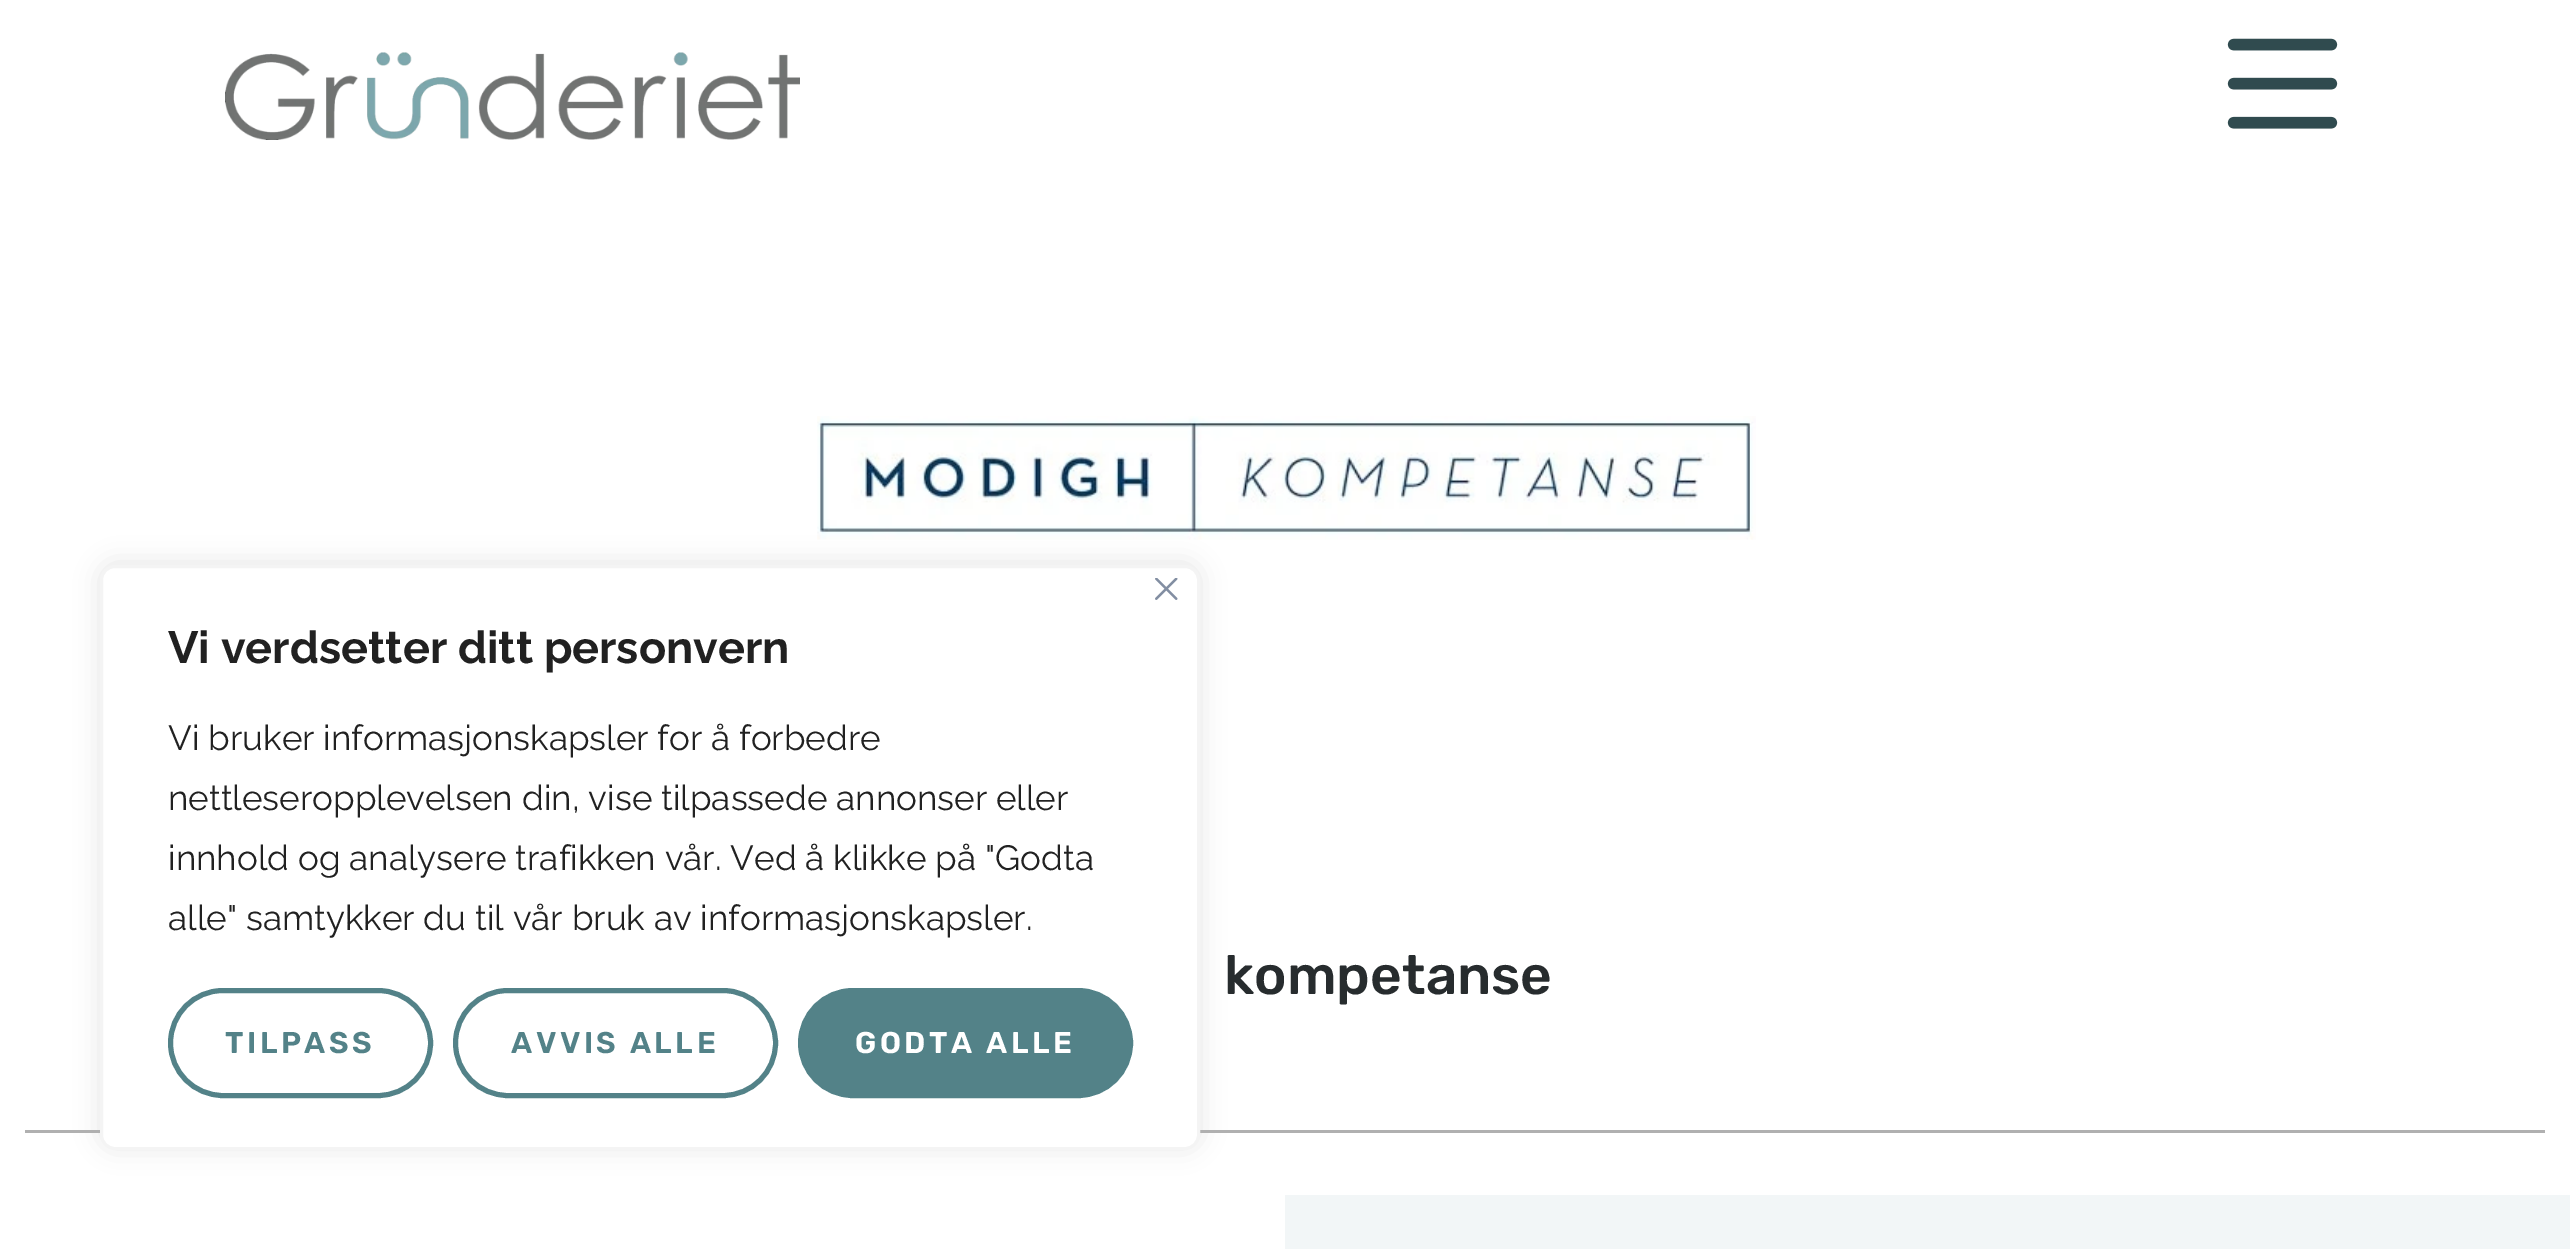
%!PS-Adobe-3.0
%%BoundingBox: 0 0 2570 1249
%%LanguageLevel: 3
%%Pages: 1
%%EndComments
%%BeginProlog
/m { moveto } bind def
/f { fill } bind def
/S { stroke } bind def
/q { gsave } bind def
/Q { grestore } bind def
/w { setlinewidth } bind def
/fn { [ exch dup neg 0 0 3 -1 roll 0 0 ] selectfont } def
/tx { moveto show } def
/bx { rectfill } def
/al { dup .setfillconstantalpha .setstrokeconstantalpha } def
/rr { 5 dict begin { /r /h /w /y /x } { exch def } forall
  x r add y moveto x w add y 2 copy h add r arct x w add y h add x 1 index r arct
  x y h add x y r arct x y 2 copy exch w add exch r arct closepath end } def
/sh { 12 dict begin { /a /b /q /h /w /y /x } { exch def } forall gsave /was 0 def
  9 -2 -9 { dup b mul 4 div /e exch def 1 sub .425 mul 2.718 exch exp 1 add a .99 .min exch div /now exch def
    1 1 now sub 1 was sub div sub al /was now def
    w h .min e 2 mul add 0 gt { x e sub y e sub w e 2 mul add h e 2 mul add
      q e add b .6 mul add w h .min 2 div e add .min 0 .max rr fill } if } for grestore end } def
/im { 5 dict begin { /h /w /y /x /name } { exch def } forall
  gsave x y translate w h scale
  w h 8 [w 0 0 h 0 0] name (r) file false 3 colorimage grestore end } def
%%EndProlog
%%BeginSetup
<< /PageSize [2570 1249] /PageUsesTransparency true >> setpagedevice
%%EndSetup
%%Page: 1 1
0 .pushpdf14devicefilter
0 1249 translate 1 -1 scale
4 setmiterlimit
1 setgray
0 0 2570 1249 bx
(image0.raw) 225 52 575 88 im
(image1.raw) 2227 38 111 91 im
(image3.raw) 817 416 939 124 im
0.69 setgray
25 1130 2520 3 bx
0.675 0.671 0.671 setrgbcolor
100 563 1100 585 15 12.5 0.3 sh
1 setgray
101.5 566.5 1097 582 13.5 rr q f Q
0.957 setgray
3 w
S
(image2.raw) 1155 578 23 22 im
/Raleway-Bold 45 fn
0.129 setgray
(Vi verdsetter ditt personvern) 168 663 tx
/Raleway-Regular 35 fn
(Vi bruker informasjonskapsler for å forbedre) 168 750 tx
(nettleseropplevelsen din, vise tilpassede annonser eller) 168 810 tx
(innhold og analysere trafikken vår. Ved å klikke på "Godta) 168 870 tx
(alle" samtykker du til vår bruk av informasjonskapsler.) 168 930 tx
0.325 0.51 0.533 setrgbcolor
5 w
170.5 990.5 260 105 52.5 rr S
/Rubik-SemiBold 30 fn
225 1053 m 3.5 0 (TILPASS) ashow
455.5 990.5 320 105 52.5 rr S
511 1053 m 3.5 0 (AVVIS ALLE) ashow
800.5 990.5 330 105 52.5 rr q f Q
S
1 setgray
855 1053 m 3.5 0 (GODTA ALLE) ashow
/Rubik-Medium 55 fn
0.153 0.173 0.18 setrgbcolor
(kompetanse) 1224 994 tx
0.949 0.965 0.969 setrgbcolor
1285 1195 1285 54 bx
.poppdf14devicefilter showpage
%%EOF
